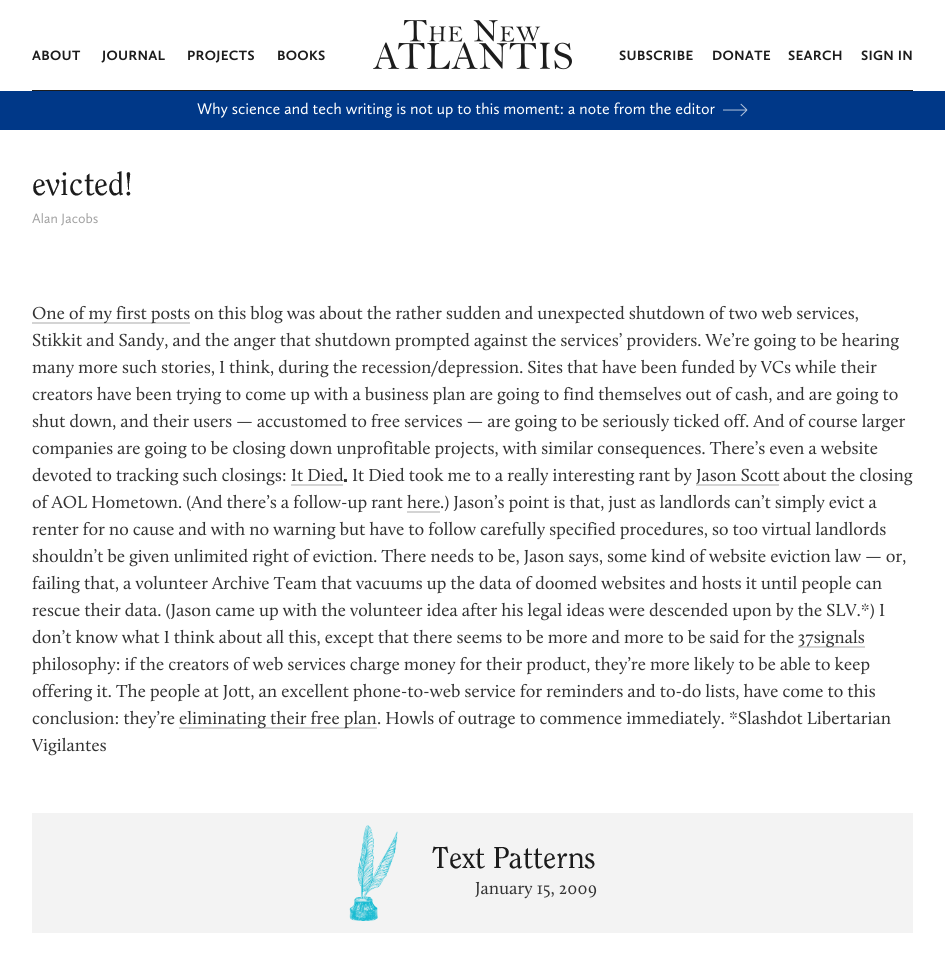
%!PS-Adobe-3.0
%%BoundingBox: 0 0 945 955
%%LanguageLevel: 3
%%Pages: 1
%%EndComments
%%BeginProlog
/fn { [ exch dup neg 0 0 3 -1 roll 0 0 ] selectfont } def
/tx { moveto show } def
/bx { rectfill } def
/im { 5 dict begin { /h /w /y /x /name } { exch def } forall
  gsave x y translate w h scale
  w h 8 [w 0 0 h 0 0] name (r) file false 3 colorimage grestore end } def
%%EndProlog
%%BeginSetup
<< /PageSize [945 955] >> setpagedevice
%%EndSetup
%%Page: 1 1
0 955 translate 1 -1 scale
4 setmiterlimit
1 setgray
0 0 945 955 bx
(image0.raw) 403 20 138 22 im
0.11 setgray
32 90 881 1 bx
(image1.raw) 32 50 49 11 im
(image2.raw) 101 50 64 13 im
(image3.raw) 188 50 66 13 im
(image4.raw) 278 50 47 11 im
(image5.raw) 373 42 199 28 im
(image6.raw) 619 50 74 11 im
(image7.raw) 713 50 58 11 im
(image8.raw) 788 50 54 11 im
(image9.raw) 861 50 51 11 im
0 0.22 0.533 setrgbcolor
0 91 945 39 bx
(image10.raw) 197 102 518 16 im
(image11.raw) 723 103 25 14 im
/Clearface-Regular 32 fn
0.11 setgray
(evicted!) 32 195 tx
(image12.raw) 32 213 66 13 im
0.831 setgray
32 322 158 2 bx
(image13.raw) 32 305 158 19 im
(image14.raw) 194 305 664 19 im
(image15.raw) 32 332 867 19 im
(image16.raw) 32 359 845 19 im
(image17.raw) 32 386 866 19 im
(image18.raw) 32 413 874 19 im
(image19.raw) 32 440 846 19 im
(image20.raw) 32 467 254 19 im
(image21.raw) 291 467 53 15 im
0.224 setgray
344 479 3 3 bx
(image22.raw) 352 467 340 19 im
(image23.raw) 696 468 84 16 im
(image24.raw) 783 467 130 19 im
0.831 setgray
291 484 52 2 bx
696 484 83 2 bx
(image25.raw) 32 494 371 19 im
(image26.raw) 407 494 33 15 im
(image27.raw) 441 494 436 19 im
407 511 33 2 bx
(image28.raw) 32 521 854 19 im
(image29.raw) 32 548 874 19 im
(image30.raw) 32 575 850 19 im
(image31.raw) 32 602 842 19 im
(image32.raw) 879 603 6 14 im
(image33.raw) 32 629 762 19 im
798 646 67 2 bx
(image34.raw) 798 629 66 19 im
(image35.raw) 32 656 838 19 im
(image36.raw) 32 683 843 19 im
(image37.raw) 32 710 143 19 im
179 727 198 2 bx
(image38.raw) 179 710 198 19 im
(image39.raw) 378 710 346 19 im
(image40.raw) 730 710 161 15 im
(image41.raw) 31 737 75 19 im
0.953 setgray
32 813 881 120 bx
(image42.raw) 349 825 49 96 im
/Clearface-Regular 30 fn
0.11 setgray
(Text Patterns) 432 868 tx
(image43.raw) 475 881 122 18 im
showpage
%%EOF
